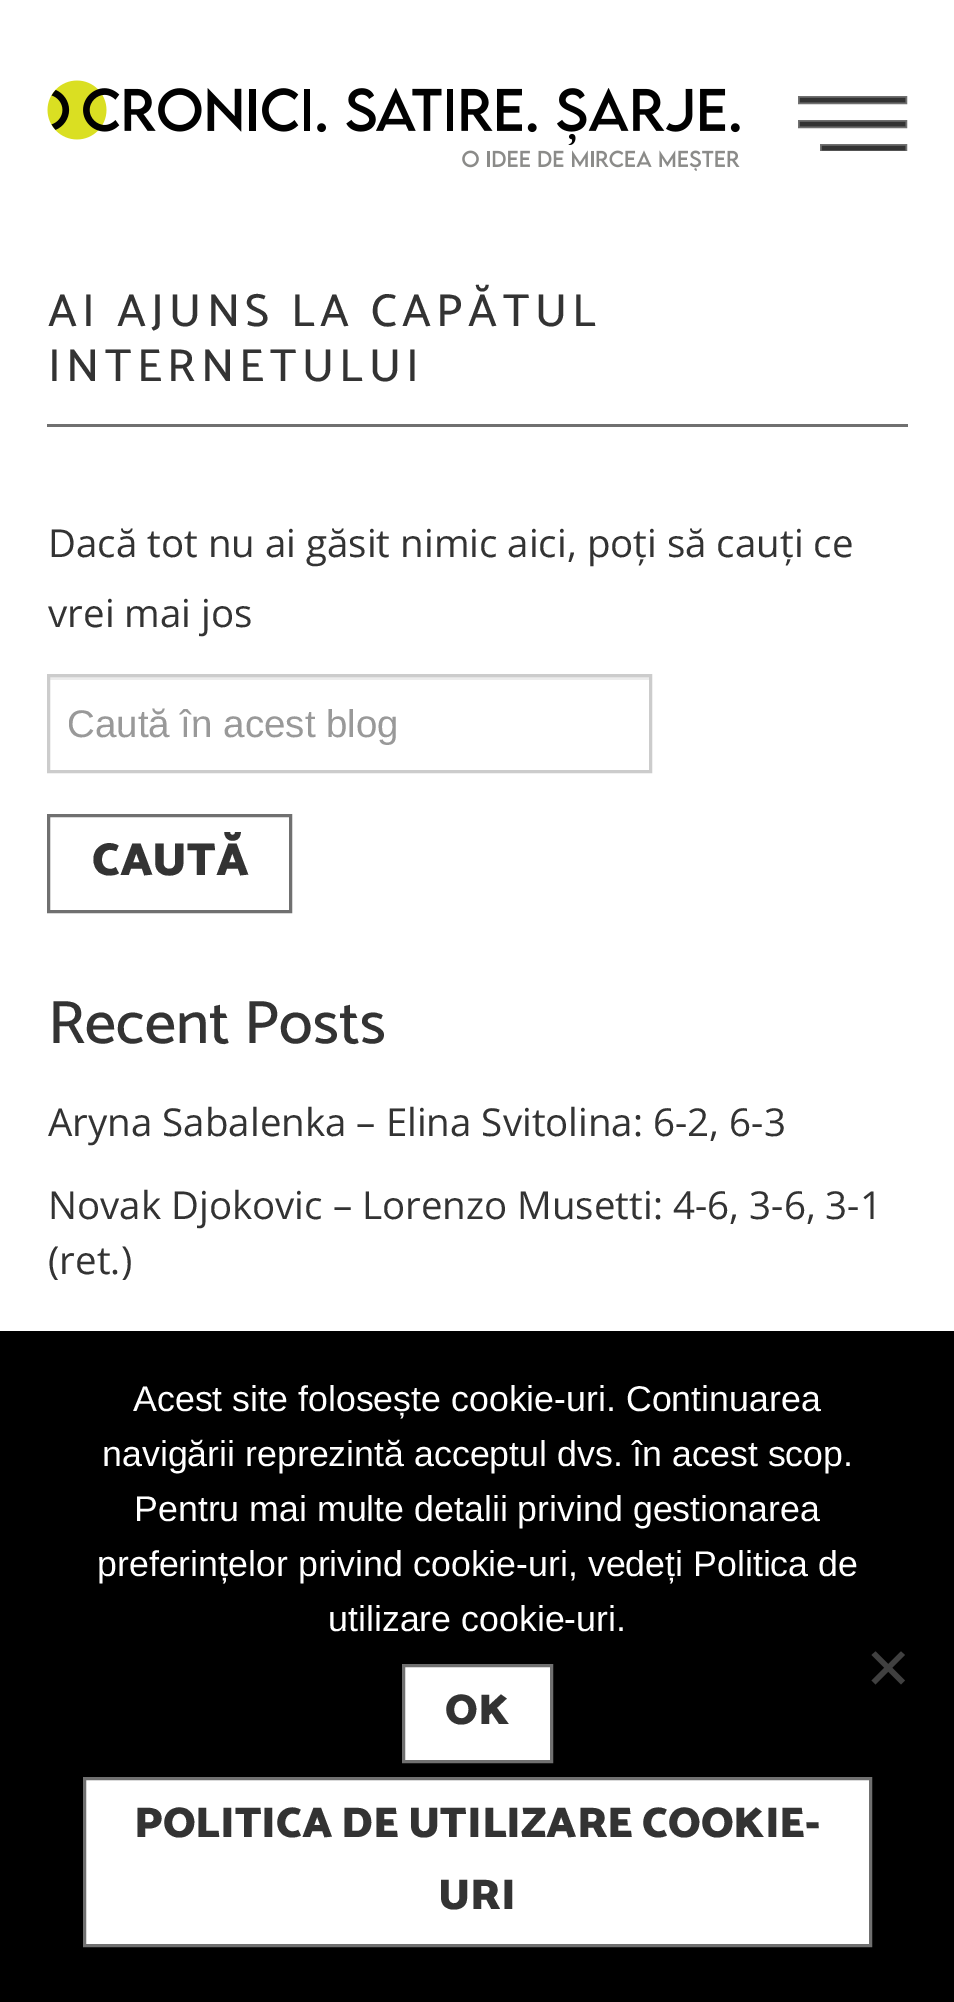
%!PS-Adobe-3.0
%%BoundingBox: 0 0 954 2002
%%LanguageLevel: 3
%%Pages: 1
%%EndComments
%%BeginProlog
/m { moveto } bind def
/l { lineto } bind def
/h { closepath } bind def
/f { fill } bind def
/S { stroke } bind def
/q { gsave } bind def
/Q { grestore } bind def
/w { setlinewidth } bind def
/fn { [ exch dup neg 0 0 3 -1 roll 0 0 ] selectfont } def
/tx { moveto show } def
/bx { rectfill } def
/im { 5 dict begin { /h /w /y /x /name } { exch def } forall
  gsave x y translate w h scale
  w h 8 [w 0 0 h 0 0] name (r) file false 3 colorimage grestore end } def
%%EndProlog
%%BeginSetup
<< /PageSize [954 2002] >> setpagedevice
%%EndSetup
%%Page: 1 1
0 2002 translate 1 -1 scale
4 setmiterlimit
1 setgray
0 0 954 2002 bx
(image0.raw) 47 80 693 91 im
0.2 setgray
798.75 96.75 m 906.25 96.75 l 906.25 103.25 l 798.75 103.25 l h q f Q
0.439 setgray
1.5 w
S
0.2 setgray
798.75 120.75 m 906.25 120.75 l 906.25 127.25 l 798.75 127.25 l h q f Q
0.439 setgray
S
0.2 setgray
820 145 87 6 bx
q
798 96 110 55 rectclip
0.439 setgray
820.75 144.75 85.5 6.5 rectstroke
Q
0.439 setgray
47 424 861 3 bx
/Catamaran-Medium 46.25 fn
0.2 setgray
48 326 m 5.5 0 (AI AJUNS LA CAPĂTUL) ashow
48 381 m 5.5 0 (INTERNETULUI) ashow
/OpenSans-Regular 38.5 fn
(Dacă tot nu ai găsit nimic aici, poți să cauți ce) 48 557 tx
(vrei mai jos) 48 627 tx
0.925 setgray
50 677 599 3 bx
0.8 setgray
3 w
48.5 675.5 602 96 rectstroke
/LiberationSans-Regular 38.5 fn
0.6 setgray
(Caută în acest blog) 67 737 tx
0.439 setgray
48.5 815.5 242 96 rectstroke
/Catamaran-Black 46.25 fn
0.2 setgray
(CAUTĂ) 92 875 tx
/Catamaran-Medium 61.5 fn
(Recent Posts) 48 1043 tx
/OpenSans-Regular 38.5 fn
(Aryna Sabalenka – Elina Svitolina: 6-2, 6-3) 48 1136 tx
(Novak Djokovic – Lorenzo Musetti: 4-6, 3-6, 3-1) 48 1219 tx
(\(ret.\)) 48 1274 tx
0 setgray
0 1331 954 671 bx
/LiberationSans-Regular 35.75 fn
1 setgray
(Acest site folosește cookie-uri. Continuarea) 133 1411 tx
(navigării reprezintă acceptul dvs. în acest scop.) 102 1466 tx
(Pentru mai multe detalii privind gestionarea) 134 1521 tx
(preferințelor privind cookie-uri, vedeți Politica de) 97 1576 tx
(utilizare cookie-uri.) 328 1631 tx
0.251 setgray
901 1651.5 m 905 1655 l 875.5 1684.5 l 871.5 1680.5 l h f
871.5 1655 m 875.5 1651.5 l 905 1680.5 l 901 1684.5 l h f
1 setgray
403.5 1665.5 m 551.5 1665.5 l 551.5 1761.5 l 403.5 1761.5 l h q f Q
0.439 setgray
S
/Catamaran-Black 42.9 fn
0.2 setgray
(OK) 445 1724 tx
1 setgray
84.5 1778.5 m 870.5 1778.5 l 870.5 1945.5 l 84.5 1945.5 l h q f Q
0.439 setgray
S
0.2 setgray
(POLITICA DE UTILIZARE COOKIE-) 134 1837 tx
(URI) 438 1909 tx
showpage
%%EOF
